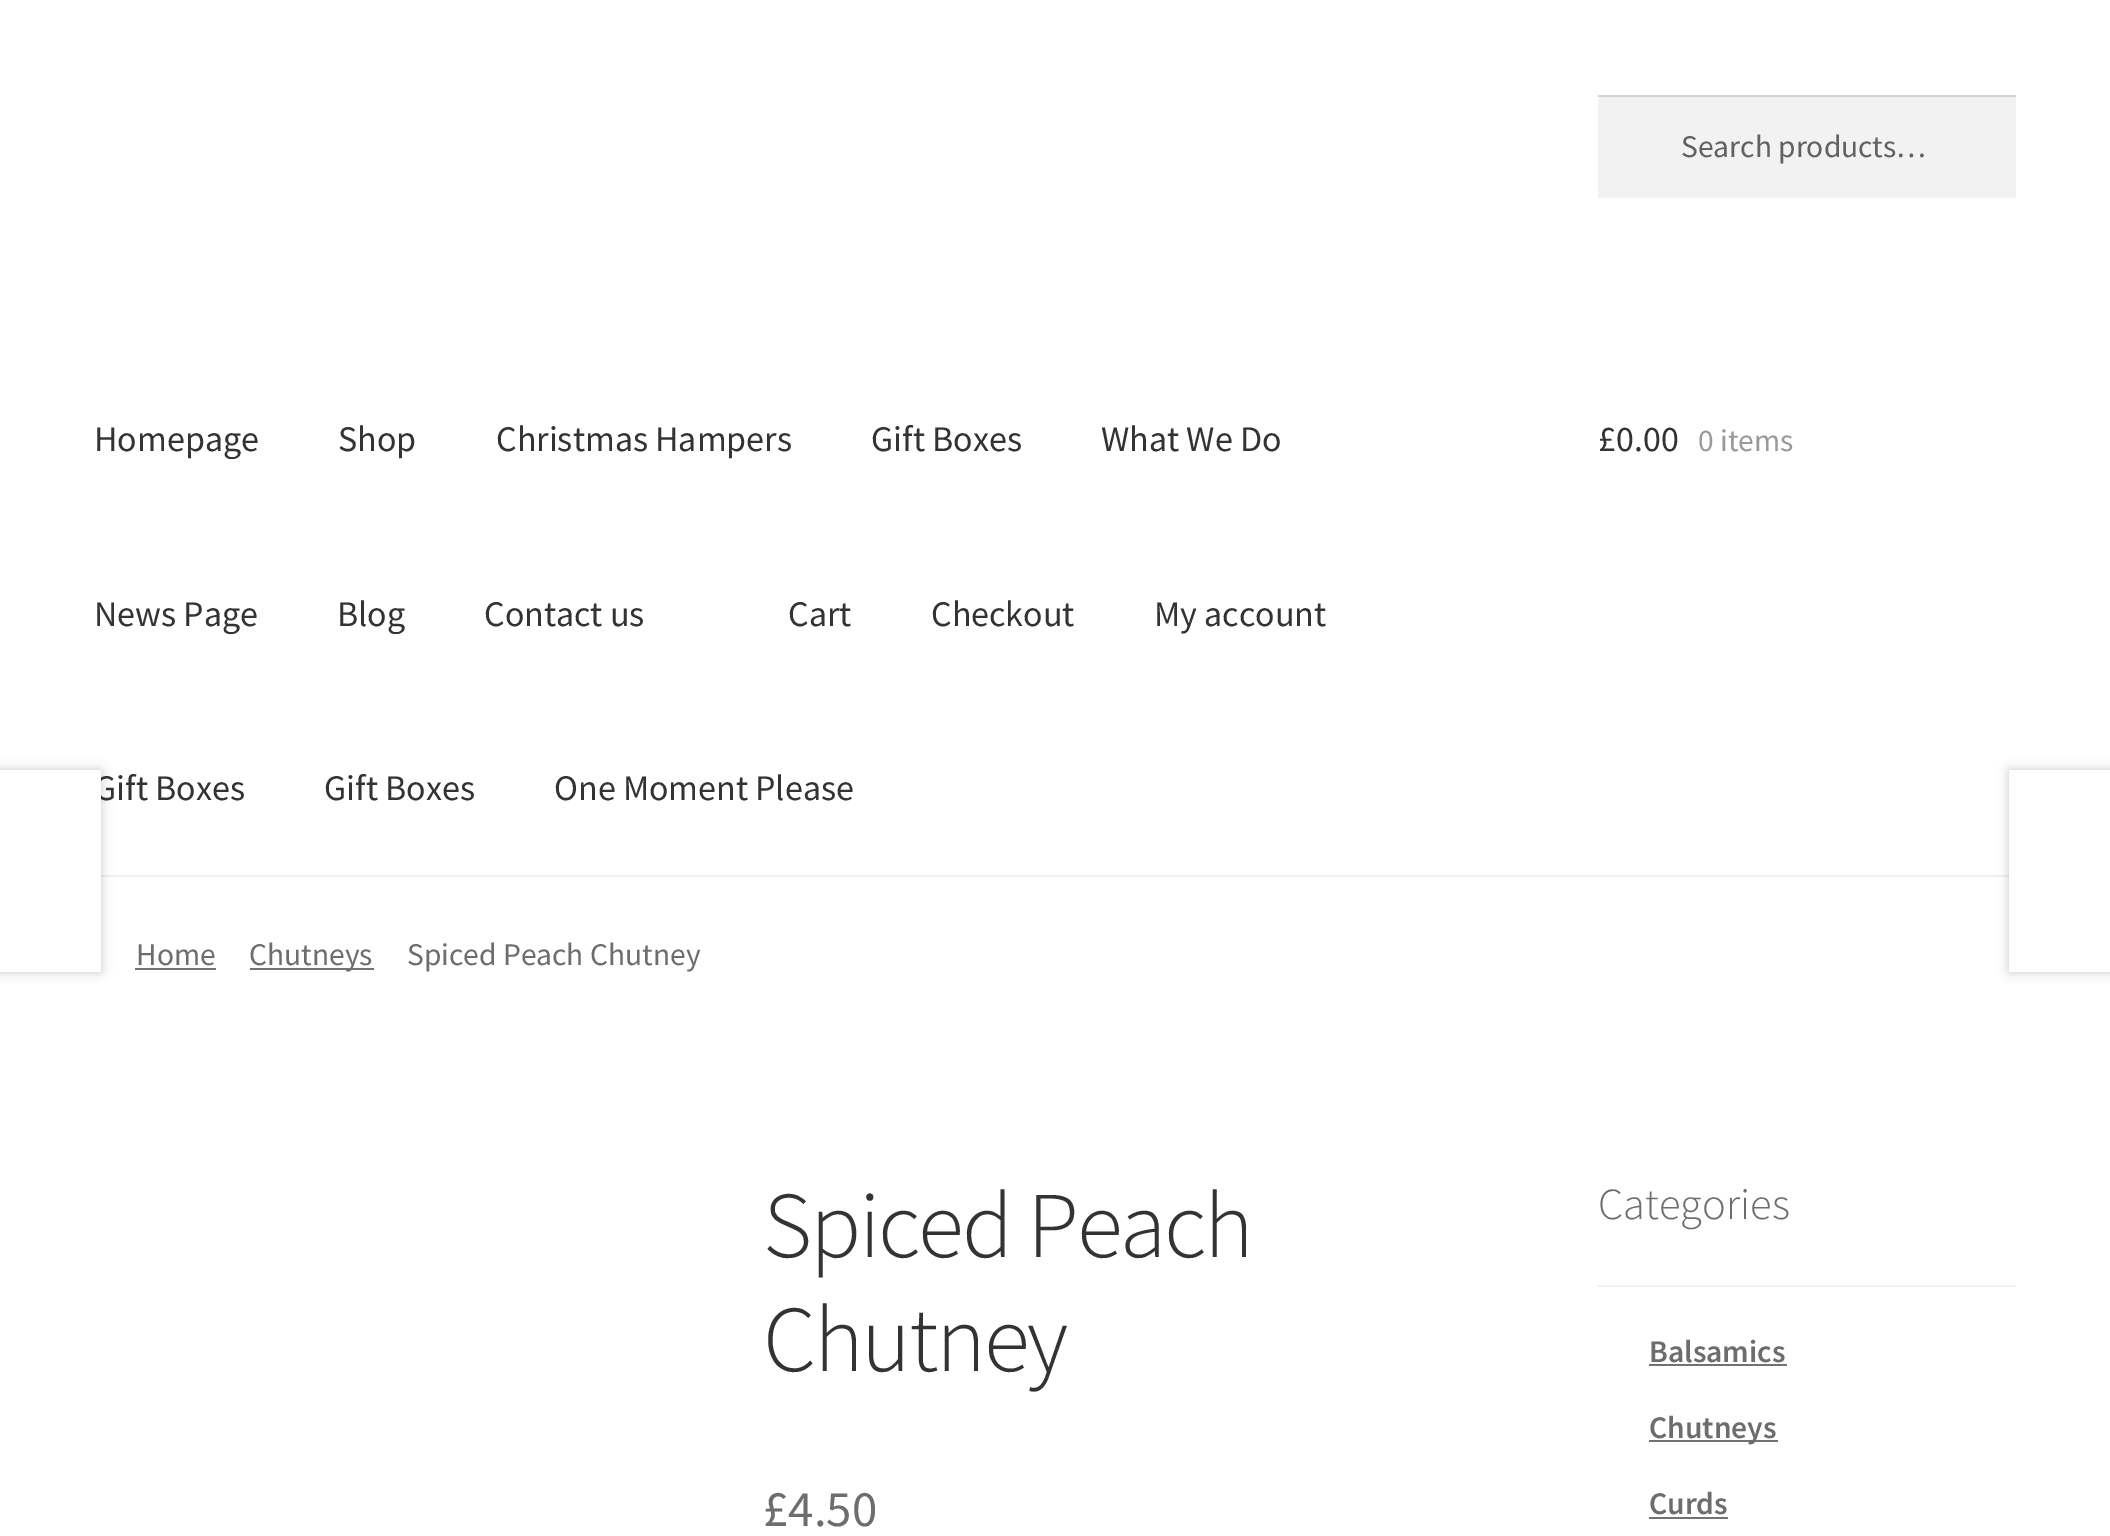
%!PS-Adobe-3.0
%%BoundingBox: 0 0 2110 1536
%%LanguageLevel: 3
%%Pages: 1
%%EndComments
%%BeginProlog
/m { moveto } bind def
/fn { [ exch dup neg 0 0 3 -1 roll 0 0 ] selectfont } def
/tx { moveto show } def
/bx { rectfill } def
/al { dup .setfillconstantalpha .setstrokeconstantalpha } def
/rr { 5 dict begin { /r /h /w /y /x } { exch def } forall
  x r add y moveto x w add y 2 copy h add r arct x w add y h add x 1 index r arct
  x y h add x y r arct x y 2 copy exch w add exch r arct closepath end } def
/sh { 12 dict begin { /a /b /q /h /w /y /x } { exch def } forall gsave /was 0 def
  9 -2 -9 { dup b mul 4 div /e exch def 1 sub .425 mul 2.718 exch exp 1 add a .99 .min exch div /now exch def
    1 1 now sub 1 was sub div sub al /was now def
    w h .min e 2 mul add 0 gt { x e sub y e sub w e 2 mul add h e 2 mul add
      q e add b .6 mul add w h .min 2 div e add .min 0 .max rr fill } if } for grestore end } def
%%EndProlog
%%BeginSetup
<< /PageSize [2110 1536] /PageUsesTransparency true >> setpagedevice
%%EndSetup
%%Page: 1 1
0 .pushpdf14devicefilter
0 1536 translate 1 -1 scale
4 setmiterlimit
1 setgray
0 0 2110 1536 bx
0.941 setgray
101 875 1908 2 bx
0.949 setgray
1598 97 418 101 bx
0.831 setgray
1598 95 418 2 bx
/SourceSansPro-Regular 31.5 fn
0.38 setgray
(Search products…) 1681 157 tx
/SourceSansPro-Regular 36 fn
0.2 setgray
(Homepage) 94 451 tx
(Shop) 338 451 tx
(Christmas Hampers) 496 451 tx
(Gift Boxes) 871 451 tx
(What We Do) 1101 451 tx
(News Page) 94 626 tx
(Blog) 337 626 tx
(Contact us) 484 626 tx
(Cart) 788 626 tx
(Checkout) 931 626 tx
(My account) 1154 626 tx
(Gift Boxes) 94 800 tx
(Gift Boxes) 324 800 tx
(One Moment Please) 554 800 tx
(£0.00) 1598 451 tx
/SourceSansPro-Regular 31.5 fn
0.6 setgray
(0 items) 1698 451 tx
0.427 setgray
(Home) 136 965 tx
0.447 setgray
135 968 81 2 bx
250 968 124 2 bx
0.427 setgray
(Chutneys) 249 965 tx
(Spiced Peach Chutney) 407 965 tx
0 setgray
-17 770 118 202 0 5.5 0.2 sh
1 setgray
0 770 101 202 bx
0 setgray
2009 770 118 202 0 5.5 0.2 sh
1 setgray
2009 770 101 202 bx
/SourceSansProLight-Light 94.25 fn
0.2 setgray
763 1257 m -2.25 0 (Spiced Peach) ashow
763 1371 m -2.25 0 (Chutney) ashow
/SourceSansPro-Regular 51 fn
0.427 setgray
(£4.50) 763 1526 tx
0.949 setgray
1598 1285 418 2 bx
/SourceSansProLight-Light 44.5 fn
0.427 setgray
(Categories) 1598 1219 tx
/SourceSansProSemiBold-SemiBold 31.5 fn
(Balsamics) 1649 1362 tx
0.447 setgray
1649 1364 138 2 bx
1649 1440 129 2 bx
0.427 setgray
(Chutneys) 1649 1438 tx
(Curds) 1649 1514 tx
0.447 setgray
1649 1517 79 2 bx
.poppdf14devicefilter showpage
%%EOF
